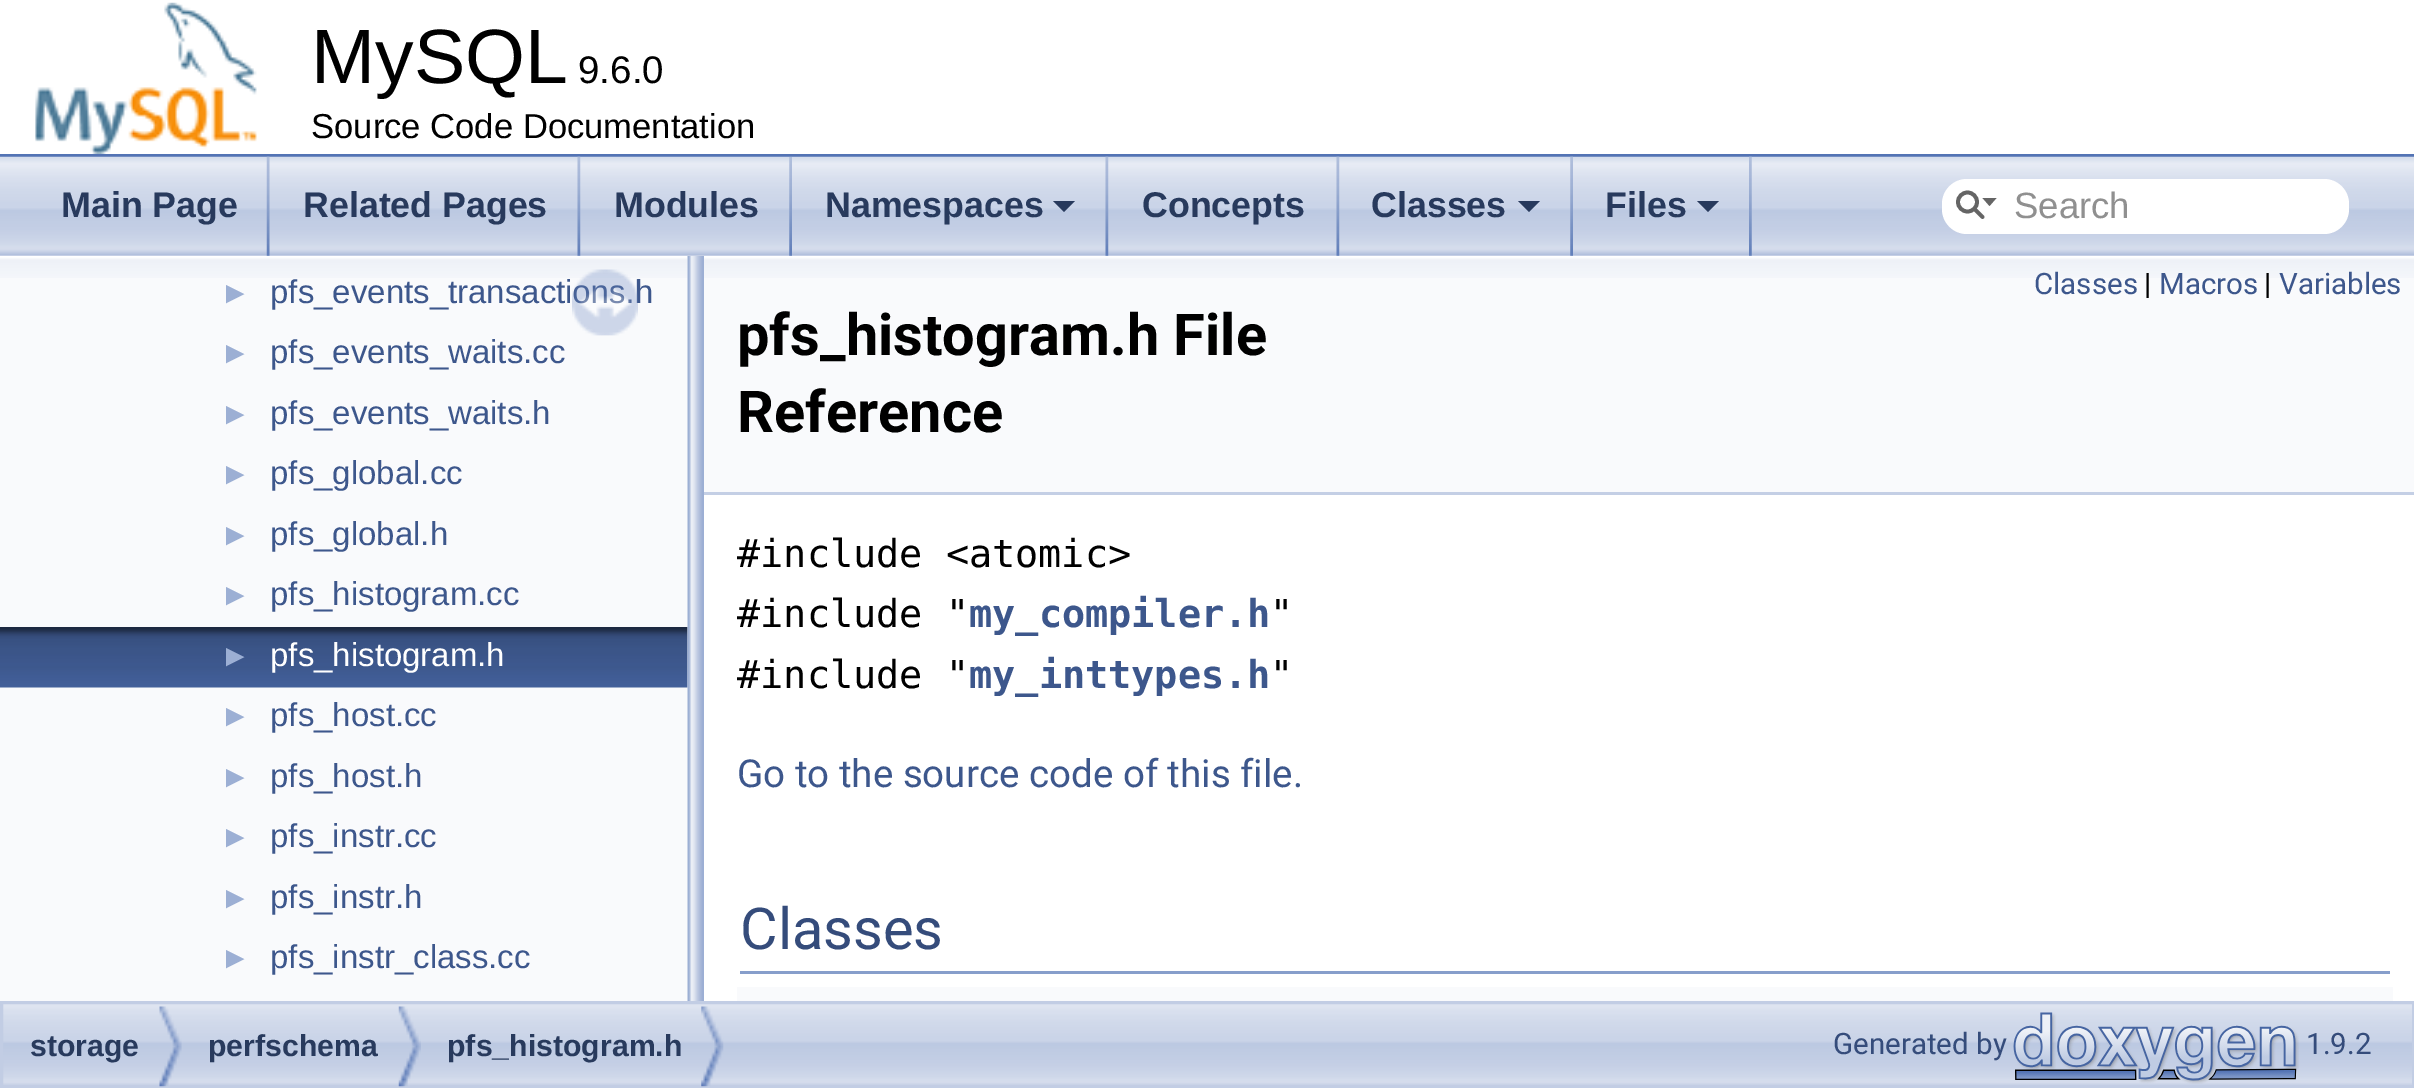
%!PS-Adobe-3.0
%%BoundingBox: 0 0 2414 1088
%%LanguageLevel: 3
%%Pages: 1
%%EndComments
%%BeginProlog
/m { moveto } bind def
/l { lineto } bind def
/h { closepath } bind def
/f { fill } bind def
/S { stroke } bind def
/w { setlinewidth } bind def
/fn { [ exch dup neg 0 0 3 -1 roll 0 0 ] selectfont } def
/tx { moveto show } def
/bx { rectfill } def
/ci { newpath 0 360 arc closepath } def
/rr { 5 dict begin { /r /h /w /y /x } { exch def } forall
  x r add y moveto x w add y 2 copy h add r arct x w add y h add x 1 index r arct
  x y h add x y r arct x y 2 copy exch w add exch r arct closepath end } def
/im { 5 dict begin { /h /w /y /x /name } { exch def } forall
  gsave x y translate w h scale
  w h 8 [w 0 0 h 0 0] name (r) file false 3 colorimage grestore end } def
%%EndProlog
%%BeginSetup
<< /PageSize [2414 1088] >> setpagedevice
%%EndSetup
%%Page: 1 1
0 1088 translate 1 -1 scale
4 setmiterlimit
1 setgray
0 0 2414 1088 bx
0.325 0.451 0.706 setrgbcolor
0 154 2414 3 bx
(image0.raw) 35 2 222 152 im
/LiberationSans-Regular 77 fn
0 setgray
(MySQL) 311 83 tx
/LiberationSans-Regular 38.5 fn
(9.6.0) 578 83 tx
/LiberationSans-Regular 34.6 fn
(Source Code Documentation) 311 138 tx
0.976 0.98 0.988 setrgbcolor
0 256 688 745 bx
(image7.raw) 0 256 688 22 im
(image9.raw) 0 627 688 61 im
(image10.raw) 687 255 17 746 im
(image1.raw) 0 156 2414 100 im
(image2.raw) 266 156 4 100 im
/LiberationSans-Bold 35.75 fn
0.157 0.227 0.365 setrgbcolor
(Main Page) 61 217 tx
(image3.raw) 577 156 4 100 im
(Related Pages) 303 217 tx
(image4.raw) 789 157 3 99 im
(Modules) 614 217 tx
(image3.raw) 1105 156 4 100 im
(Namespaces) 825 217 tx
1053 201 m 1075 201 l 1064 212 l h f
(image3.raw) 1336 156 4 100 im
(Concepts) 1142 217 tx
(image5.raw) 1570 156 3 100 im
(Classes) 1371 217 tx
1518 201 m 1540 201 l 1529 212 l h f
(image6.raw) 1749 156 3 100 im
(Files) 1605 217 tx
1697 201 m 1719 201 l 1708 212 l h f
1 setgray
1942 179 407 55 25 rr f
0.396 setgray
3.8 w
1967.5 202 9.5 ci S
1982.5 198 m 1989.5 206 l 1996.5 198 l h f
1 setlinecap
1975 209.5 m 1982.5 217 l S
/LiberationSans-Regular 36.5 fn
0.565 setgray
(Search) 2014 218 tx
/LiberationSans-Regular 33 fn
0.239 0.341 0.549 setrgbcolor
(pfs_events_transactions.h) 270 303 tx
(image8.raw) 572 269 66 67 im
/LiberationSans-Regular 31 fn
0.612 0.686 0.831 setrgbcolor
(►) 220 303 tx
(►) 220 363 tx
/LiberationSans-Regular 33 fn
0.239 0.341 0.549 setrgbcolor
(pfs_events_waits.cc) 270 363 tx
/LiberationSans-Regular 31 fn
0.612 0.686 0.831 setrgbcolor
(►) 220 424 tx
/LiberationSans-Regular 33 fn
0.239 0.341 0.549 setrgbcolor
(pfs_events_waits.h) 270 424 tx
/LiberationSans-Regular 31 fn
0.612 0.686 0.831 setrgbcolor
(►) 220 484 tx
/LiberationSans-Regular 33 fn
0.239 0.341 0.549 setrgbcolor
(pfs_global.cc) 270 484 tx
/LiberationSans-Regular 31 fn
0.612 0.686 0.831 setrgbcolor
(►) 220 545 tx
/LiberationSans-Regular 33 fn
0.239 0.341 0.549 setrgbcolor
(pfs_global.h) 270 545 tx
/LiberationSans-Regular 31 fn
0.612 0.686 0.831 setrgbcolor
(►) 220 605 tx
/LiberationSans-Regular 33 fn
0.239 0.341 0.549 setrgbcolor
(pfs_histogram.cc) 270 605 tx
/LiberationSans-Regular 31 fn
0.612 0.686 0.831 setrgbcolor
(►) 220 666 tx
/LiberationSans-Regular 33 fn
1 setgray
(pfs_histogram.h) 270 666 tx
/LiberationSans-Regular 31 fn
0.612 0.686 0.831 setrgbcolor
(►) 220 726 tx
/LiberationSans-Regular 33 fn
0.239 0.341 0.549 setrgbcolor
(pfs_host.cc) 270 726 tx
/LiberationSans-Regular 31 fn
0.612 0.686 0.831 setrgbcolor
(►) 220 787 tx
/LiberationSans-Regular 33 fn
0.239 0.341 0.549 setrgbcolor
(pfs_host.h) 270 787 tx
/LiberationSans-Regular 31 fn
0.612 0.686 0.831 setrgbcolor
(►) 220 847 tx
/LiberationSans-Regular 33 fn
0.239 0.341 0.549 setrgbcolor
(pfs_instr.cc) 270 847 tx
/LiberationSans-Regular 31 fn
0.612 0.686 0.831 setrgbcolor
(►) 220 908 tx
/LiberationSans-Regular 33 fn
0.239 0.341 0.549 setrgbcolor
(pfs_instr.h) 270 908 tx
/LiberationSans-Regular 31 fn
0.612 0.686 0.831 setrgbcolor
(►) 220 968 tx
/LiberationSans-Regular 33 fn
0.239 0.341 0.549 setrgbcolor
(pfs_instr_class.cc) 270 968 tx
0.976 0.98 0.988 setrgbcolor
704 278 1710 214 bx
(image11.raw) 704 256 1710 22 im
0.769 0.812 0.898 setrgbcolor
704 492 1710 3 bx
/Roboto-Regular 29.5 fn
0.239 0.341 0.549 setrgbcolor
(Classes) 2034 294 tx
0 setgray
(|) 2144 294 tx
0.239 0.341 0.549 setrgbcolor
(Macros) 2159 294 tx
0 setgray
(|) 2264 294 tx
0.239 0.341 0.549 setrgbcolor
(Variables) 2279 294 tx
/Roboto-Bold 57.75 fn
0 setgray
(pfs_histogram.h File) 737 355 tx
(Reference) 737 432 tx
/DejaVuSansMono-Regular 38.5 fn
(#include <atomic>) 737 567 tx
(#include ") 737 627 tx
/DejaVuSansMono-Bold 38.5 fn
0.239 0.341 0.549 setrgbcolor
(my_compiler.h) 969 627 tx
/DejaVuSansMono-Regular 38.5 fn
0 setgray
(") 1270 627 tx
(#include ") 737 688 tx
/DejaVuSansMono-Bold 38.5 fn
0.239 0.341 0.549 setrgbcolor
(my_inttypes.h) 969 688 tx
/DejaVuSansMono-Regular 38.5 fn
0 setgray
(") 1270 688 tx
/Roboto-Regular 38.5 fn
0.239 0.341 0.549 setrgbcolor
(Go to the source code of this file.) 737 787 tx
0.529 0.62 0.796 setrgbcolor
740 971 1650 3 bx
/Roboto-Regular 57.75 fn
0.208 0.298 0.482 setrgbcolor
(Classes) 740 949 tx
0.976 0.98 0.988 setrgbcolor
737 987 1656 14 bx
(image12.raw) 3 1004 2409 82 im
0.761 0.804 0.894 setrgbcolor
3 w
0 setlinecap
1.5 1002.5 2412 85 rectstroke
(image13.raw) 159 1006 23 81 im
/LiberationSans-Bold 30.25 fn
0.157 0.227 0.365 setrgbcolor
(storage) 30 1056 tx
(image14.raw) 398 1006 23 81 im
(perfschema) 208 1056 tx
(image15.raw) 701 1006 23 81 im
(pfs_histogram.h) 447 1056 tx
/Roboto-Regular 29.5 fn
0.208 0.298 0.482 setrgbcolor
(Generated by) 1833 1054 tx
(image16.raw) 2013 1012 286 72 im
(1.9.2) 2306 1054 tx
showpage
%%EOF
